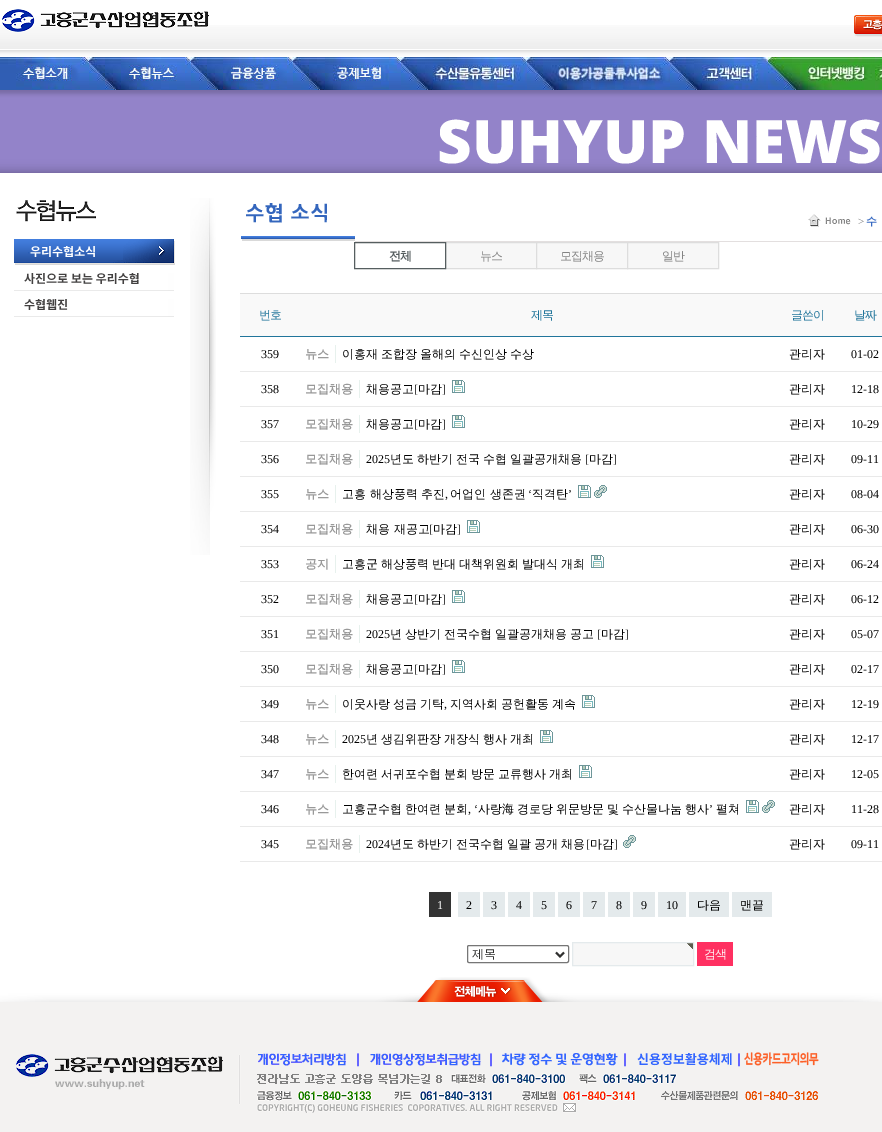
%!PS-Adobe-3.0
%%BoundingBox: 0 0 882 1132
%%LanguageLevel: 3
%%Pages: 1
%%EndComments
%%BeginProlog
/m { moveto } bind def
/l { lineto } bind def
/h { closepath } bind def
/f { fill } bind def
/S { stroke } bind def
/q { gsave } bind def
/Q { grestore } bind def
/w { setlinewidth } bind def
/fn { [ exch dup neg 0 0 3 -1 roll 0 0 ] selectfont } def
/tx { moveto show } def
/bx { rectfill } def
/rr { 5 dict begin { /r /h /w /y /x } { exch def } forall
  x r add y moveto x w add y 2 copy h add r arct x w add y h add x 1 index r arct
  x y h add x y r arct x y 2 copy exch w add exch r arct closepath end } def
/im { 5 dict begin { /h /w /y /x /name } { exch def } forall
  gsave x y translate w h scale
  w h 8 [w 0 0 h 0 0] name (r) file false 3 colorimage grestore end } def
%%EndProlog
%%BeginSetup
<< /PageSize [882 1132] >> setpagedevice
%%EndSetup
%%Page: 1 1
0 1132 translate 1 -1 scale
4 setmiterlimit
1 setgray
0 0 882 1132 bx
(image0.raw) 0 25 882 32 im
(image1.raw) 875 89 7 1 im
(image2.raw) 2 9 207 24 im
(image3.raw) 854 15 28 22 im
(image4.raw) 0 57 89 33 im
(image5.raw) 89 57 102 33 im
(image6.raw) 191 57 102 33 im
(image7.raw) 293 57 108 33 im
(image8.raw) 401 57 126 33 im
(image9.raw) 527 57 143 33 im
(image10.raw) 670 57 98 33 im
(image11.raw) 768 57 107 33 im
(image12.raw) 875 57 7 32 im
(image13.raw) 0 90 882 83 im
/OpenSans-ExtraBold 60 fn
(SUHYUP NEWS) 437 163 tx
(image14.raw) 190 198 26 357 im
(image15.raw) 16 200 80 22 im
(image16.raw) 14 239 161 26 im
(image17.raw) 14 273 160 18 im
(image18.raw) 14 299 160 18 im
0.89 0.875 0.875 setrgbcolor
355 241 527 1 bx
(image19.raw) 240 203 115 39 im
(image20.raw) 808 214 43 13 im
/LiberationSerif-Regular 11 fn
0.514 setgray
858 225 m -1 0 (>) ashow
/WenQuanYiZenHei-Bold 11 fn
0.212 0.412 0.761 setrgbcolor
866 225 m -1 0 (수) ashow
0.969 setgray
445.5 242.5 m 536.5 242.5 l 536.5 268.5 l 445.5 268.5 l h q f Q
0.867 setgray
S
0.337 0.369 0.376 setrgbcolor
354.5 242.5 91 26 rectstroke
/WenQuanYiZenHei-Bold 12 fn
389 260 m -1 0 (전체) ashow
/WenQuanYiZenHei-Medium 12 fn
0.514 setgray
480 260 m -1 0 (뉴스) ashow
0.969 setgray
536.5 242.5 m 627.5 242.5 l 627.5 268.5 l 536.5 268.5 l h q f Q
0.867 setgray
S
0.514 setgray
560 260 m -1 0 (모집채용) ashow
0.969 setgray
627.5 242.5 m 718.5 242.5 l 718.5 268.5 l 627.5 268.5 l h q f Q
0.867 setgray
S
0.514 setgray
662 260 m -1 0 (일반) ashow
0.976 setgray
240 294 642 42 bx
0.129 0.459 0.608 setrgbcolor
259 319 m -1 0 (번호) ashow
531 319 m -1 0 (제목) ashow
791 319 m -1 0 (글쓴이) ashow
0.867 setgray
240 293 642 1 bx
0.129 0.459 0.608 setrgbcolor
240 336 642 1 bx
854 319 m -1 0 (날짜) ashow
/LiberationSerif-Regular 12 fn
0 setgray
(359) 261 358 tx
0.906 0.945 0.929 setrgbcolor
335 345 1 18 bx
/WenQuanYiZenHei-Bold 12 fn
0.6 setgray
(뉴스) 305 358 tx
/WenQuanYiZenHei-Medium 12 fn
0 setgray
342 358 m -0.5 0 32 (이홍재 조합장 올해의 수신인상 수상) widthshow
(관리자) 789 358 tx
/LiberationSerif-Regular 12 fn
(01-02) 851 358 tx
(358) 261 393 tx
0.906 0.945 0.929 setrgbcolor
359 380 1 18 bx
/WenQuanYiZenHei-Bold 12 fn
0.6 setgray
(모집채용) 305 393 tx
/WenQuanYiZenHei-Medium 12 fn
0 setgray
(채용공고) 366 393 tx
/LiberationSerif-Regular 12 fn
([) 414 393 tx
/WenQuanYiZenHei-Medium 12 fn
(마감) 418 393 tx
/LiberationSerif-Regular 12 fn
(]) 442 393 tx
(image21.raw) 452 380 13 13 im
/WenQuanYiZenHei-Medium 12 fn
(관리자) 789 393 tx
0.914 setgray
240 371 642 1 bx
/LiberationSerif-Regular 12 fn
0 setgray
(12-18) 851 393 tx
(357) 261 428 tx
0.906 0.945 0.929 setrgbcolor
359 415 1 18 bx
/WenQuanYiZenHei-Bold 12 fn
0.6 setgray
(모집채용) 305 428 tx
/WenQuanYiZenHei-Medium 12 fn
0 setgray
(채용공고) 366 428 tx
/LiberationSerif-Regular 12 fn
([) 414 428 tx
/WenQuanYiZenHei-Medium 12 fn
(마감) 418 428 tx
/LiberationSerif-Regular 12 fn
(]) 442 428 tx
(image21.raw) 452 415 13 13 im
/WenQuanYiZenHei-Medium 12 fn
(관리자) 789 428 tx
0.914 setgray
240 406 642 1 bx
/LiberationSerif-Regular 12 fn
0 setgray
(10-29) 851 428 tx
(356) 261 463 tx
0.906 0.945 0.929 setrgbcolor
359 450 1 18 bx
/WenQuanYiZenHei-Bold 12 fn
0.6 setgray
(모집채용) 305 463 tx
/LiberationSerif-Regular 12 fn
0 setgray
(2025) 366 463 tx
/WenQuanYiZenHei-Medium 12 fn
390 463 m -0.5 0 32 (년도 하반기 전국 수협 일괄공개채용) widthshow
/LiberationSerif-Regular 12 fn
([) 585 463 tx
/WenQuanYiZenHei-Medium 12 fn
(마감) 589 463 tx
/LiberationSerif-Regular 12 fn
(]) 613 463 tx
/WenQuanYiZenHei-Medium 12 fn
(관리자) 789 463 tx
0.914 setgray
240 441 642 1 bx
/LiberationSerif-Regular 12 fn
0 setgray
(09-11) 851 463 tx
(355) 261 498 tx
0.906 0.945 0.929 setrgbcolor
335 485 1 18 bx
/WenQuanYiZenHei-Bold 12 fn
0.6 setgray
(뉴스) 305 498 tx
/WenQuanYiZenHei-Medium 12 fn
0 setgray
(고흥 해상풍력 추진) 342 498 tx
(어업인 생존권) 450 498 tx
/LiberationSerif-Regular 12 fn
(‘) 528 498 tx
/WenQuanYiZenHei-Medium 12 fn
(직격탄) 532 498 tx
/LiberationSerif-Regular 12 fn
(’) 568 498 tx
(image21.raw) 578 485 13 13 im
(image22.raw) 594 485 13 13 im
(,) 445 498 tx
/WenQuanYiZenHei-Medium 12 fn
(관리자) 789 498 tx
0.914 setgray
240 476 642 1 bx
/LiberationSerif-Regular 12 fn
0 setgray
(08-04) 851 498 tx
(354) 261 533 tx
0.906 0.945 0.929 setrgbcolor
359 520 1 18 bx
/WenQuanYiZenHei-Bold 12 fn
0.6 setgray
(모집채용) 305 533 tx
/WenQuanYiZenHei-Medium 12 fn
0 setgray
(채용 재공고) 366 533 tx
/LiberationSerif-Regular 12 fn
([) 429 533 tx
/WenQuanYiZenHei-Medium 12 fn
(마감) 433 533 tx
/LiberationSerif-Regular 12 fn
(]) 457 533 tx
(image21.raw) 467 520 13 13 im
/WenQuanYiZenHei-Medium 12 fn
(관리자) 789 533 tx
0.914 setgray
240 511 642 1 bx
/LiberationSerif-Regular 12 fn
0 setgray
(06-30) 851 533 tx
(353) 261 568 tx
0.906 0.945 0.929 setrgbcolor
335 555 1 18 bx
/WenQuanYiZenHei-Bold 12 fn
0.6 setgray
(공지) 305 568 tx
/WenQuanYiZenHei-Medium 12 fn
0 setgray
342 568 m -0.5 0 32 (고흥군 해상풍력 반대 대책위원회 발대식 개최) widthshow
(image21.raw) 591 555 13 13 im
(관리자) 789 568 tx
0.914 setgray
240 546 642 1 bx
/LiberationSerif-Regular 12 fn
0 setgray
(06-24) 851 568 tx
(352) 261 603 tx
0.906 0.945 0.929 setrgbcolor
359 590 1 18 bx
/WenQuanYiZenHei-Bold 12 fn
0.6 setgray
(모집채용) 305 603 tx
/WenQuanYiZenHei-Medium 12 fn
0 setgray
(채용공고) 366 603 tx
/LiberationSerif-Regular 12 fn
([) 414 603 tx
/WenQuanYiZenHei-Medium 12 fn
(마감) 418 603 tx
/LiberationSerif-Regular 12 fn
(]) 442 603 tx
(image21.raw) 452 590 13 13 im
/WenQuanYiZenHei-Medium 12 fn
(관리자) 789 603 tx
0.914 setgray
240 581 642 1 bx
/LiberationSerif-Regular 12 fn
0 setgray
(06-12) 851 603 tx
(351) 261 638 tx
0.906 0.945 0.929 setrgbcolor
359 625 1 18 bx
/WenQuanYiZenHei-Bold 12 fn
0.6 setgray
(모집채용) 305 638 tx
/LiberationSerif-Regular 12 fn
0 setgray
(2025) 366 638 tx
/WenQuanYiZenHei-Medium 12 fn
390 638 m -0.5 0 32 (년 상반기 전국수협 일괄공개채용 공고) widthshow
/LiberationSerif-Regular 12 fn
([) 597 638 tx
/WenQuanYiZenHei-Medium 12 fn
(마감) 601 638 tx
/LiberationSerif-Regular 12 fn
(]) 625 638 tx
/WenQuanYiZenHei-Medium 12 fn
(관리자) 789 638 tx
0.914 setgray
240 616 642 1 bx
/LiberationSerif-Regular 12 fn
0 setgray
(05-07) 851 638 tx
(350) 261 673 tx
0.906 0.945 0.929 setrgbcolor
359 660 1 18 bx
/WenQuanYiZenHei-Bold 12 fn
0.6 setgray
(모집채용) 305 673 tx
/WenQuanYiZenHei-Medium 12 fn
0 setgray
(채용공고) 366 673 tx
/LiberationSerif-Regular 12 fn
([) 414 673 tx
/WenQuanYiZenHei-Medium 12 fn
(마감) 418 673 tx
/LiberationSerif-Regular 12 fn
(]) 442 673 tx
(image21.raw) 452 660 13 13 im
/WenQuanYiZenHei-Medium 12 fn
(관리자) 789 673 tx
0.914 setgray
240 651 642 1 bx
/LiberationSerif-Regular 12 fn
0 setgray
(02-17) 851 673 tx
(349) 261 708 tx
0.906 0.945 0.929 setrgbcolor
335 695 1 18 bx
/WenQuanYiZenHei-Bold 12 fn
0.6 setgray
(뉴스) 305 708 tx
/WenQuanYiZenHei-Medium 12 fn
0 setgray
342 708 m -0.5 0 32 (이웃사랑 성금 기탁) widthshow
/LiberationSerif-Regular 12 fn
(,) 444 708 tx
/WenQuanYiZenHei-Medium 12 fn
450 708 m -0.5 0 32 (지역사회 공헌활동 계속) widthshow
(image21.raw) 582 695 13 13 im
(관리자) 789 708 tx
0.914 setgray
240 686 642 1 bx
/LiberationSerif-Regular 12 fn
0 setgray
(12-19) 851 708 tx
(348) 261 743 tx
0.906 0.945 0.929 setrgbcolor
335 730 1 18 bx
/WenQuanYiZenHei-Bold 12 fn
0.6 setgray
(뉴스) 305 743 tx
/LiberationSerif-Regular 12 fn
0 setgray
(2025) 342 743 tx
/WenQuanYiZenHei-Medium 12 fn
366 743 m -0.5 0 32 (년 생김위판장 개장식 행사 개최) widthshow
(image21.raw) 540 730 13 13 im
(관리자) 789 743 tx
0.914 setgray
240 721 642 1 bx
/LiberationSerif-Regular 12 fn
0 setgray
(12-17) 851 743 tx
(347) 261 778 tx
0.906 0.945 0.929 setrgbcolor
335 765 1 18 bx
/WenQuanYiZenHei-Bold 12 fn
0.6 setgray
(뉴스) 305 778 tx
/WenQuanYiZenHei-Medium 12 fn
0 setgray
342 778 m -0.5 0 32 (한여련 서귀포수협 분회 방문 교류행사 개최) widthshow
(image21.raw) 579 765 13 13 im
(관리자) 789 778 tx
0.914 setgray
240 756 642 1 bx
/LiberationSerif-Regular 12 fn
0 setgray
(12-05) 851 778 tx
(346) 261 813 tx
0.906 0.945 0.929 setrgbcolor
335 800 1 18 bx
/WenQuanYiZenHei-Bold 12 fn
0.6 setgray
(뉴스) 305 813 tx
/WenQuanYiZenHei-Medium 12 fn
0 setgray
(고흥군수협) 342 813 tx
(한여련) 405 813 tx
(분회) 444 813 tx
/LiberationSerif-Regular 12 fn
(, ‘) 468 813 tx
/WenQuanYiZenHei-Medium 12 fn
(사랑海) 478 813 tx
(경로당) 517 813 tx
(위문방문) 556 813 tx
(및) 607 813 tx
(수산물나눔) 622 813 tx
(행사) 685 813 tx
/LiberationSerif-Regular 12 fn
(’) 709 813 tx
/WenQuanYiZenHei-Medium 12 fn
(펼쳐) 716 813 tx
(image21.raw) 746 800 13 13 im
(image22.raw) 762 800 13 13 im
(관리자) 789 813 tx
0.914 setgray
240 791 642 1 bx
/LiberationSerif-Regular 12 fn
0 setgray
(11-28) 851 813 tx
(345) 261 848 tx
0.906 0.945 0.929 setrgbcolor
359 835 1 18 bx
/WenQuanYiZenHei-Bold 12 fn
0.6 setgray
(모집채용) 305 848 tx
/LiberationSerif-Regular 12 fn
0 setgray
(2024) 366 848 tx
/WenQuanYiZenHei-Medium 12 fn
390 848 m -0.5 0 32 (년도 하반기 전국수협 일괄 공개 채용) widthshow
/LiberationSerif-Regular 12 fn
([) 586 848 tx
/WenQuanYiZenHei-Medium 12 fn
(마감) 590 848 tx
/LiberationSerif-Regular 12 fn
(]) 614 848 tx
(image22.raw) 623 835 13 13 im
/WenQuanYiZenHei-Medium 12 fn
(관리자) 789 848 tx
0.914 setgray
240 826 642 1 bx
240 861 642 1 bx
/LiberationSerif-Regular 12 fn
0 setgray
(09-11) 851 848 tx
0.2 setgray
429 892 22 25 bx
1 setgray
(1) 437 909 tx
0.894 0.918 0.925 setrgbcolor
458 892 22 25 bx
0 setgray
(2) 466 909 tx
0.894 0.918 0.925 setrgbcolor
483 892 22 25 bx
0 setgray
(3) 491 909 tx
0.894 0.918 0.925 setrgbcolor
508 892 22 25 bx
0 setgray
(4) 516 909 tx
0.894 0.918 0.925 setrgbcolor
533 892 22 25 bx
0 setgray
(5) 541 909 tx
0.894 0.918 0.925 setrgbcolor
558 892 22 25 bx
0 setgray
(6) 566 909 tx
0.894 0.918 0.925 setrgbcolor
583 892 22 25 bx
0 setgray
(7) 591 909 tx
0.894 0.918 0.925 setrgbcolor
608 892 22 25 bx
0 setgray
(8) 616 909 tx
0.894 0.918 0.925 setrgbcolor
633 892 22 25 bx
0 setgray
(9) 641 909 tx
0.894 0.918 0.925 setrgbcolor
658 892 28 25 bx
0 setgray
(10) 666 909 tx
0.894 0.918 0.925 setrgbcolor
689 892 40 25 bx
/WenQuanYiZenHei-Medium 12 fn
0 setgray
(다음) 697 909 tx
0.894 0.918 0.925 setrgbcolor
732 892 40 25 bx
0 setgray
(맨끝) 740 909 tx
0.463 setgray
467.5 945.5 101 17 1.5 rr S
0.192 0.192 0.188 setrgbcolor
2 w
556 952.5 m 560 956.5 l 564 952.5 l S
(제목) 472 958 tx
0.969 setgray
573 943 120 22 bx
(image23.raw) 687 943 6 6 im
0.894 0.918 0.925 setrgbcolor
1 w
572.5 942.5 121 23 rectstroke
1 0.188 0.38 setrgbcolor
697 942 36 24 bx
1 setgray
704 958 m -1 0 (검색) ashow
(image24.raw) 0 977 882 25 im
0.953 0.949 0.945 setrgbcolor
0 1002 882 130 bx
(image25.raw) 16 1052 803 61 im
showpage
%%EOF
